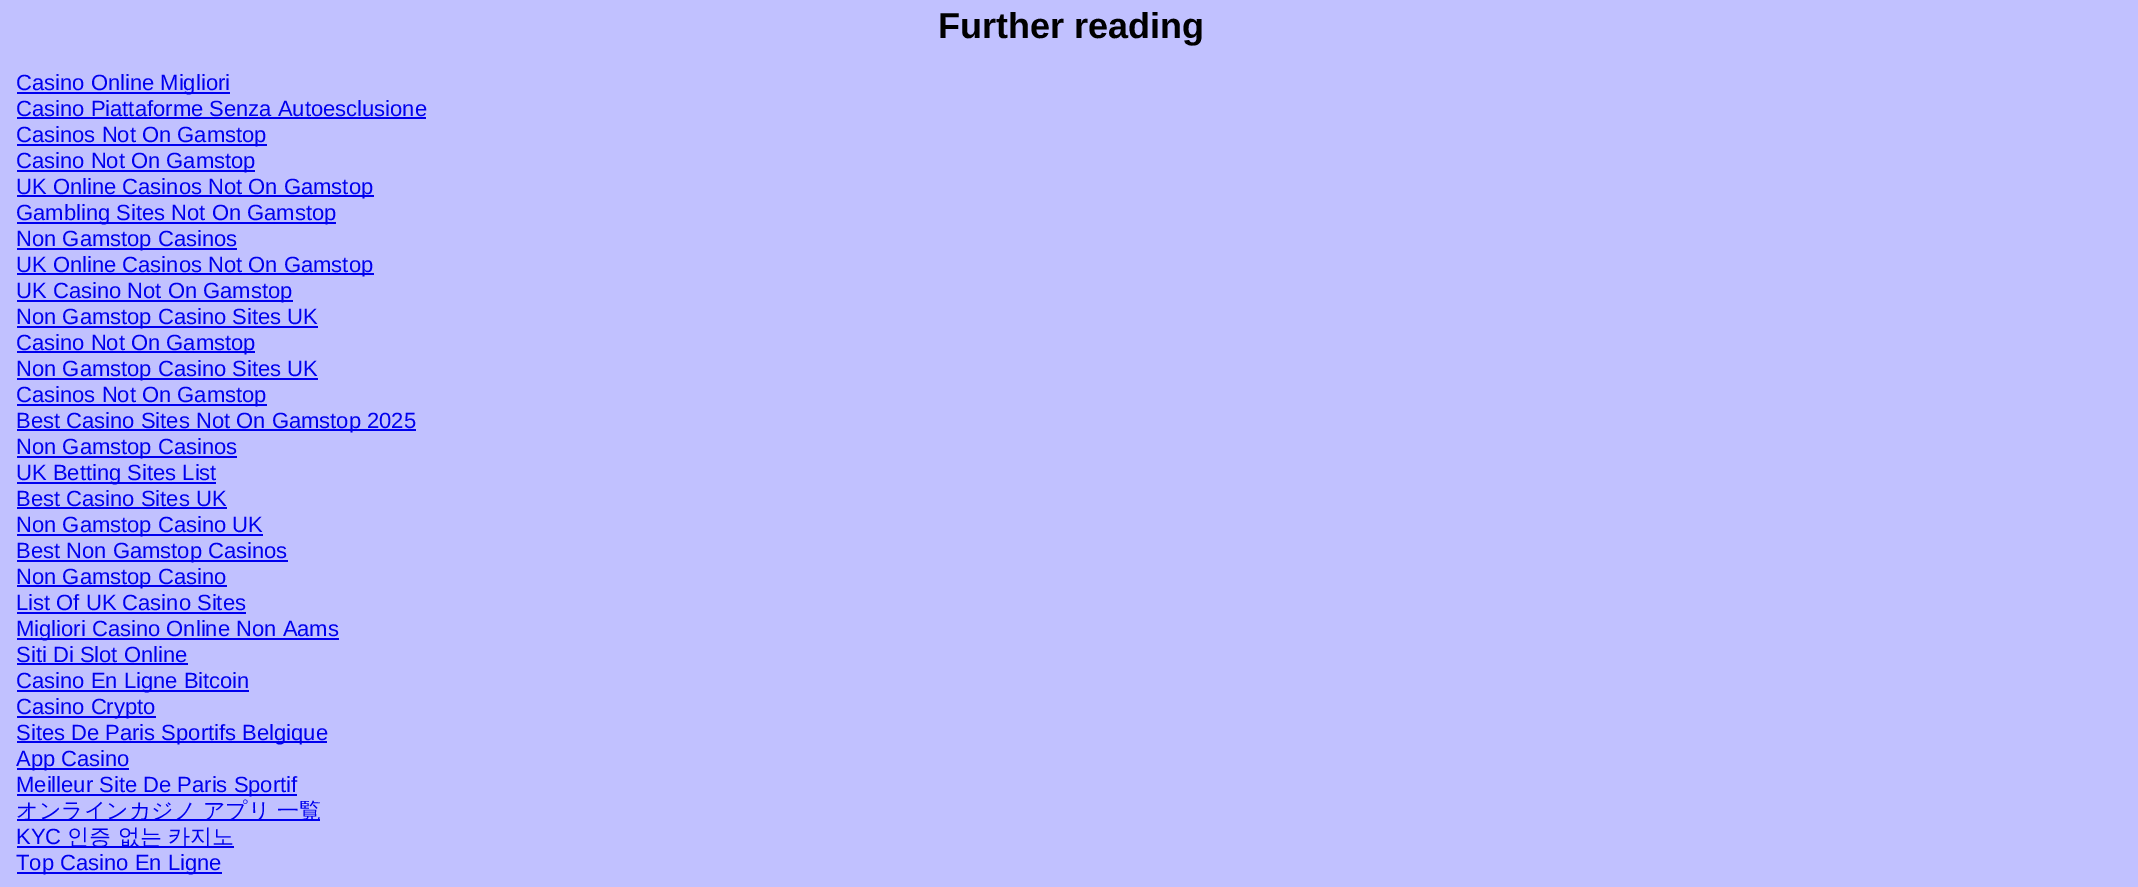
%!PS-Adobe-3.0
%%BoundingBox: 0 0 2138 887
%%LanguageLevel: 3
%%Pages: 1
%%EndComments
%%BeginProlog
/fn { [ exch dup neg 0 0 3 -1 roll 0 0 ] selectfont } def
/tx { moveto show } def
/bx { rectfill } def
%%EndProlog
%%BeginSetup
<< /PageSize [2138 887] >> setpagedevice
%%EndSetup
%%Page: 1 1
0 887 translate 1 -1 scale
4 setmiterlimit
0.757 0.757 1 setrgbcolor
0 0 2138 887 bx
/LiberationSans-Bold 36 fn
0 setgray
(Further reading) 938 38 tx
0 0 0.933 setrgbcolor
17 92 213 2 bx
/LiberationSans-Regular 22 fn
(Casino Online Migliori) 16 90 tx
(Casino Piattaforme Senza Autoesclusione) 16 116 tx
17 117 409 2 bx
17 144 250 2 bx
(Casinos Not On Gamstop) 16 142 tx
17 170 238 2 bx
(Casino Not On Gamstop) 16 168 tx
17 195 357 2 bx
(UK Online Casinos Not On Gamstop) 16 194 tx
17 222 319 2 bx
(Gambling Sites Not On Gamstop) 16 220 tx
17 248 220 2 bx
(Non Gamstop Casinos) 16 246 tx
17 273 357 2 bx
(UK Online Casinos Not On Gamstop) 16 272 tx
17 300 276 2 bx
(UK Casino Not On Gamstop) 16 298 tx
17 326 301 2 bx
(Non Gamstop Casino Sites UK) 16 324 tx
17 351 238 2 bx
(Casino Not On Gamstop) 16 350 tx
17 378 301 2 bx
(Non Gamstop Casino Sites UK) 16 376 tx
17 404 250 2 bx
(Casinos Not On Gamstop) 16 402 tx
17 429 399 2 bx
(Best Casino Sites Not On Gamstop 2025) 16 428 tx
17 456 220 2 bx
(Non Gamstop Casinos) 16 454 tx
17 482 199 2 bx
(UK Betting Sites List) 16 480 tx
(Best Casino Sites UK) 16 506 tx
17 507 210 2 bx
17 534 246 2 bx
(Non Gamstop Casino UK) 16 532 tx
17 560 271 2 bx
(Best Non Gamstop Casinos) 16 558 tx
17 585 210 2 bx
(Non Gamstop Casino) 16 584 tx
(List Of UK Casino Sites) 16 610 tx
17 612 229 2 bx
17 638 322 2 bx
(Migliori Casino Online Non Aams) 16 636 tx
(Siti Di Slot Online) 16 662 tx
17 663 171 2 bx
17 690 232 2 bx
(Casino En Ligne Bitcoin) 16 688 tx
17 716 139 2 bx
(Casino Crypto) 16 714 tx
17 741 310 2 bx
(Sites De Paris Sportifs Belgique) 16 740 tx
17 768 112 2 bx
(App Casino) 16 766 tx
17 794 280 2 bx
(Meilleur Site De Paris Sportif) 16 792 tx
17 819 303 2 bx
/WenQuanYiZenHei-Medium 22 fn
(オンラインカジノ アプリ 一覧) 16 818 tx
/LiberationSans-Regular 22 fn
(KYC) 16 844 tx
17 846 217 2 bx
/WenQuanYiZenHei-Medium 22 fn
(인증 없는 카지노) 67 844 tx
17 872 205 2 bx
/LiberationSans-Regular 22 fn
(Top Casino En Ligne) 16 870 tx
showpage
%%EOF
